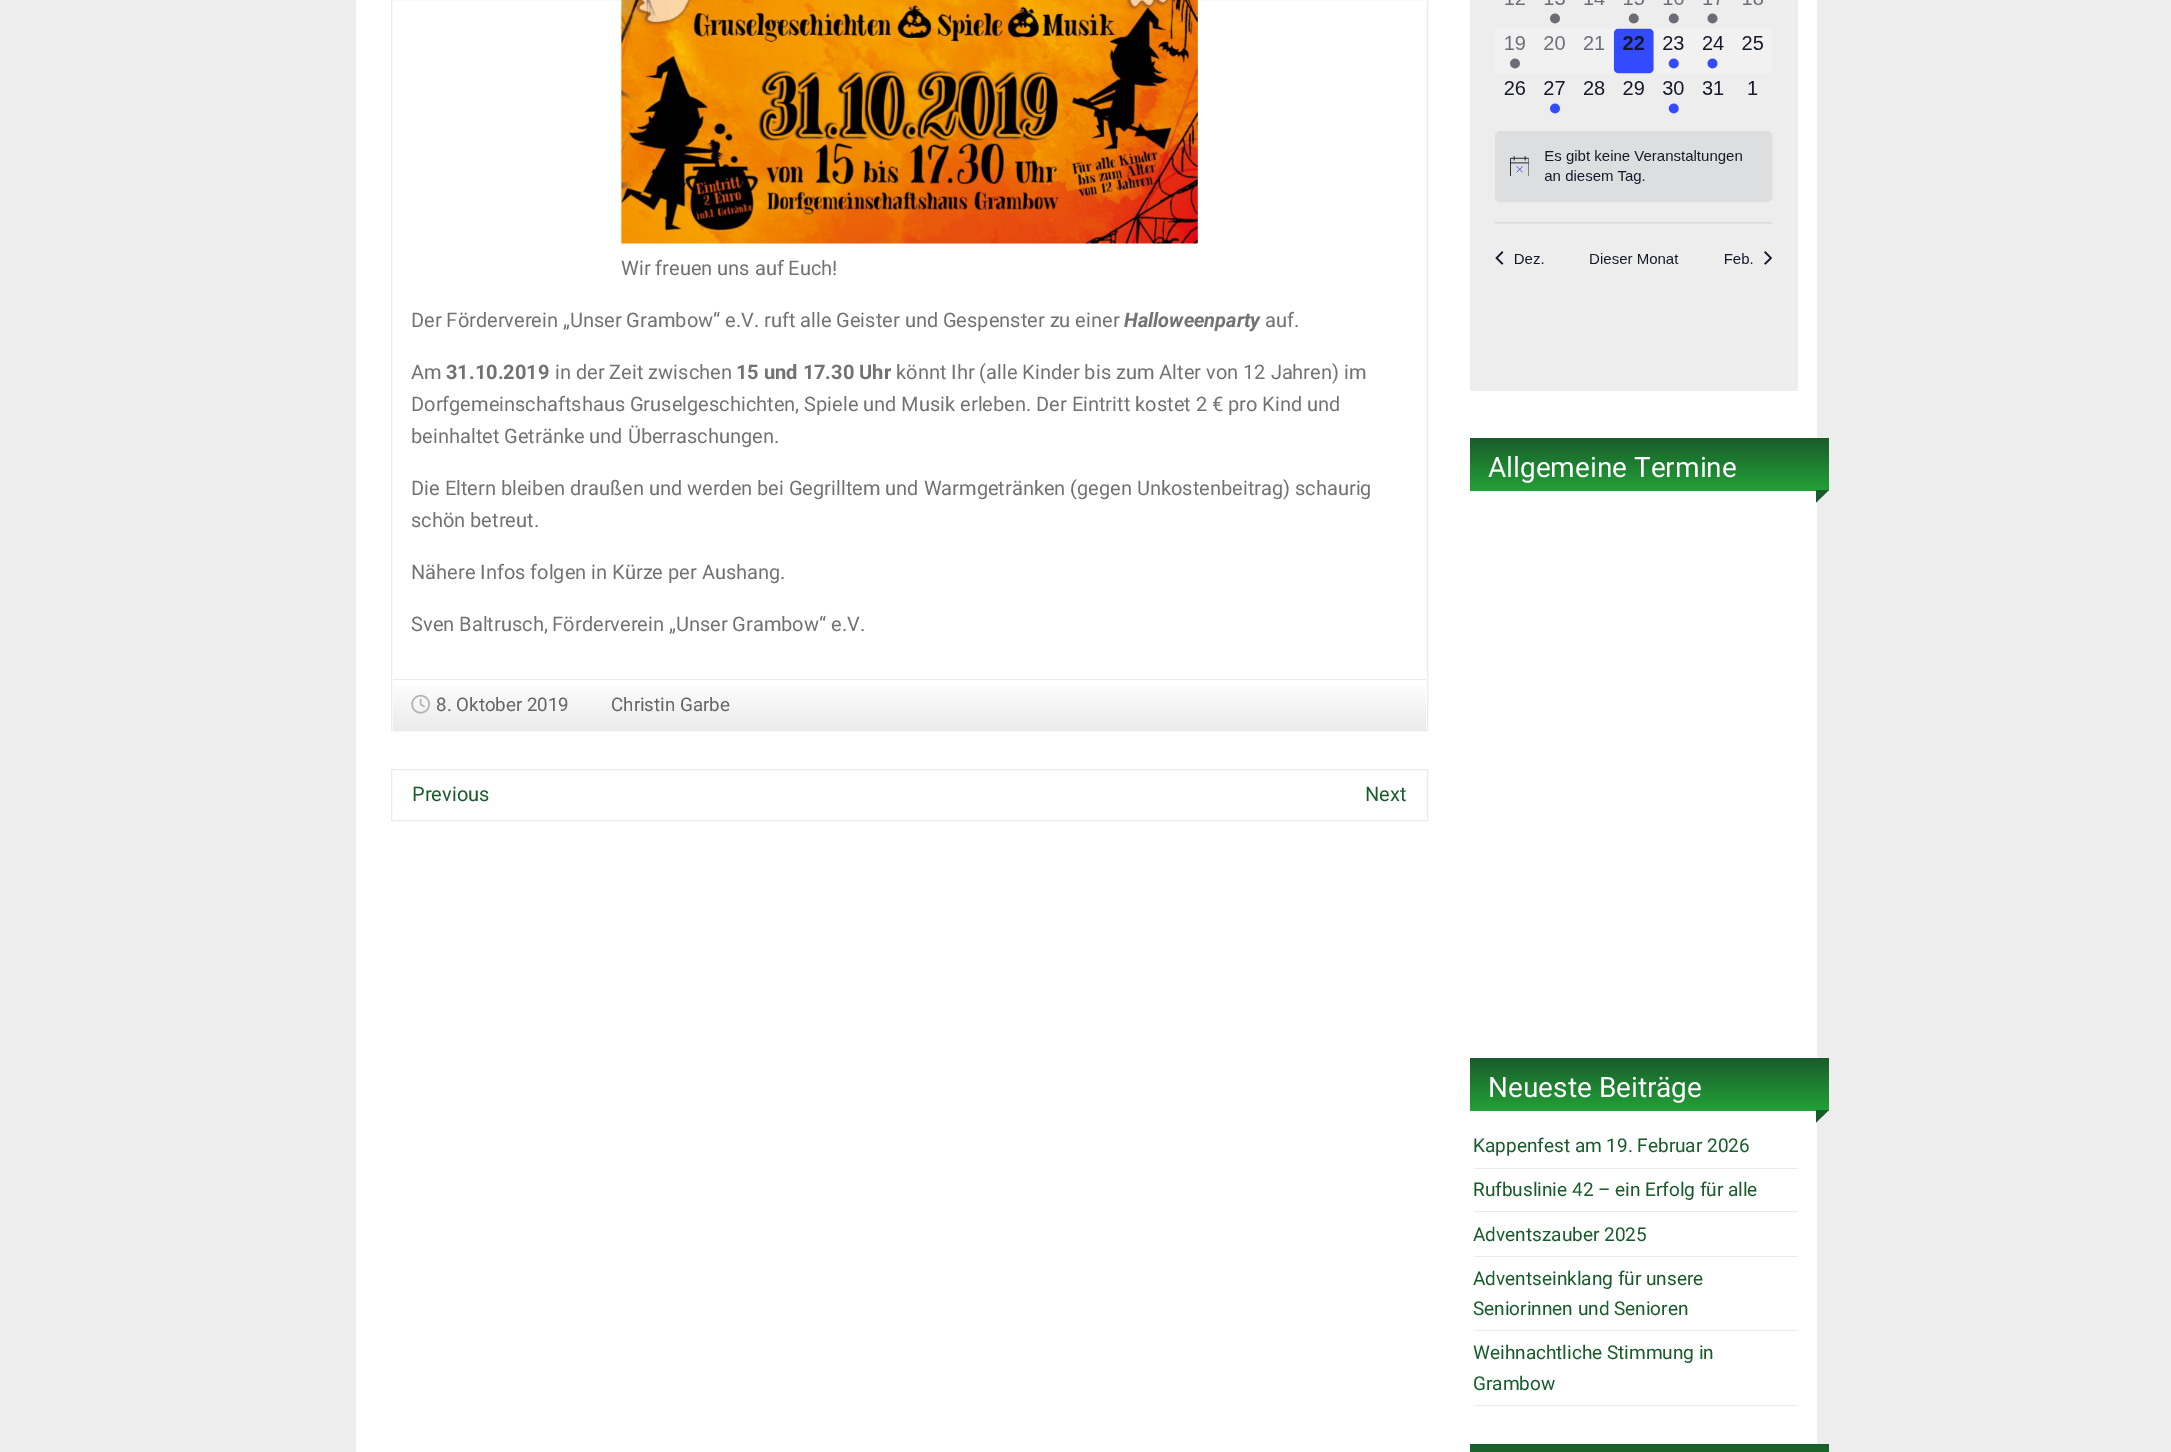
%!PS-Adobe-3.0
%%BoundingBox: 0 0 2171 1452
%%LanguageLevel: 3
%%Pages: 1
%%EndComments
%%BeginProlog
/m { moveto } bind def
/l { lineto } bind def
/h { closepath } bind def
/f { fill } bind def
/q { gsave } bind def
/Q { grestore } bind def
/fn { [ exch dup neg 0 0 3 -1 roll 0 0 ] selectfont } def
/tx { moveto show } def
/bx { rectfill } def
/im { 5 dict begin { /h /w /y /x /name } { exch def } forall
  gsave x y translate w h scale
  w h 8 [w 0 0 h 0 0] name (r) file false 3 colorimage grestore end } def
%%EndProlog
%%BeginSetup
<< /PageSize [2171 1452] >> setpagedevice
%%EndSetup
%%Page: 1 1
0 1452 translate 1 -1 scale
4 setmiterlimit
0.929 setgray
0 0 2171 1452 bx
1 setgray
356 0 1461 1452 bx
0.922 setgray
391.5 -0.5 1036 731 rectstroke
(image0.raw) 620 0 578 244 im
/Roboto-Regular 20 fn
0.447 setgray
(Wir freuen uns auf Euch!) 621 275 tx
(Der Förderverein „Unser Grambow“ e.V. ruft alle Geister und Gespenster zu einer) 411 327 tx
/Roboto-BoldItalic 20 fn
(Halloweenparty) 1124 327 tx
/Roboto-Regular 20 fn
(auf.) 1265 327 tx
(Am) 411 379 tx
/Roboto-Bold 20 fn
(31.10.2019) 446 379 tx
/Roboto-Regular 20 fn
(in der Zeit zwischen) 555 379 tx
/Roboto-Bold 20 fn
(15 und 17.30 Uhr) 736 379 tx
/Roboto-Regular 20 fn
(könnt Ihr \(alle Kinder bis zum Alter von 12 Jahren\) im) 896 379 tx
(Dorfgemeinschaftshaus Gruselgeschichten, Spiele und Musik erleben. Der Eintritt kostet 2 € pro Kind und) 411 411 tx
(beinhaltet Getränke und Überraschungen.) 411 443 tx
(Die Eltern bleiben draußen und werden bei Gegrilltem und Warmgetränken \(gegen Unkostenbeitrag\) schaurig) 411 495 tx
(schön betreut.) 411 527 tx
(Nähere Infos folgen in Kürze per Aushang.) 411 579 tx
(Sven Baltrusch, Förderverein „Unser Grambow“ e.V.) 411 631 tx
q 393 679 m 1426 679 l 1426 680 l 393 680 l h clip newpath
<< /ShadingType 2 /ColorSpace /DeviceRGB /Coords [393 630 393 680] /Extend [true true] /Function << /FunctionType 2 /Domain [0 1] /C0 [1 1 1] /C1 [0.922 0.922 0.922] /N 1 >> >> shfill Q
q 393 686 m 1426 686 l 1426 730 l 393 730 l h clip newpath
<< /ShadingType 2 /ColorSpace /DeviceRGB /Coords [393 680 393 730] /Extend [true true] /Function << /FunctionType 2 /Domain [0 1] /C0 [1 1 1] /C1 [0.922 0.922 0.922] /N 1 >> >> shfill Q
(image1.raw) 411 694 19 20 im
/Roboto-Regular 18.75 fn
0.4 setgray
(8. Oktober 2019) 436 711 tx
(Christin Garbe) 611 711 tx
0.922 setgray
391.5 769.5 1036 51 rectstroke
/Roboto-Regular 20 fn
0.098 0.361 0.169 setrgbcolor
(Previous) 412 801 tx
(Next) 1365 801 tx
(image2.raw) 1470 0 328 391 im
q 1470 438 m 1829 438 l 1829 491 l 1470 491 l h clip newpath
<< /ShadingType 2 /ColorSpace /DeviceRGB /Coords [1470 438 1470 491] /Extend [true true] /Function << /FunctionType 2 /Domain [0 1] /C0 [0.098 0.361 0.169] /C1 [0.137 0.631 0.216] /N 1 >> >> shfill Q
/Roboto-Regular 28 fn
1 setgray
(Allgemeine Termine) 1488 477 tx
0.098 0.361 0.169 setrgbcolor
1816 490 m 1829 490 l 1816 502.5 l h f
q 1470 1058 m 1829 1058 l 1829 1111 l 1470 1111 l h clip newpath
<< /ShadingType 2 /ColorSpace /DeviceRGB /Coords [1470 1058 1470 1111] /Extend [true true] /Function << /FunctionType 2 /Domain [0 1] /C0 [0.098 0.361 0.169] /C1 [0.137 0.631 0.216] /N 1 >> >> shfill Q
1 setgray
(Neueste Beiträge) 1488 1097 tx
0.098 0.361 0.169 setrgbcolor
1816 1110 m 1829 1110 l 1816 1122.5 l h f
0.922 setgray
1474 1168 324 1 bx
/Roboto-Regular 19 fn
0.098 0.361 0.169 setrgbcolor
(Kappenfest am 19. Februar 2026) 1473 1152 tx
0.922 setgray
1474 1211 324 1 bx
0.098 0.361 0.169 setrgbcolor
(Rufbuslinie 42 – ein Erfolg für alle) 1473 1196 tx
0.922 setgray
1474 1256 324 1 bx
0.098 0.361 0.169 setrgbcolor
(Adventszauber 2025) 1473 1241 tx
0.922 setgray
1474 1330 324 1 bx
0.098 0.361 0.169 setrgbcolor
(Adventseinklang für unsere) 1473 1285 tx
(Seniorinnen und Senioren) 1473 1315 tx
0.922 setgray
1474 1405 324 1 bx
0.098 0.361 0.169 setrgbcolor
(Weihnachtliche Stimmung in) 1473 1359 tx
(Grambow) 1473 1390 tx
q 1470 1444 m 1829 1444 l 1829 1452 l 1470 1452 l h clip newpath
<< /ShadingType 2 /ColorSpace /DeviceRGB /Coords [1470 1444 1470 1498] /Extend [true true] /Function << /FunctionType 2 /Domain [0 1] /C0 [0.098 0.361 0.169] /C1 [0.137 0.631 0.216] /N 1 >> >> shfill Q
showpage
%%EOF
